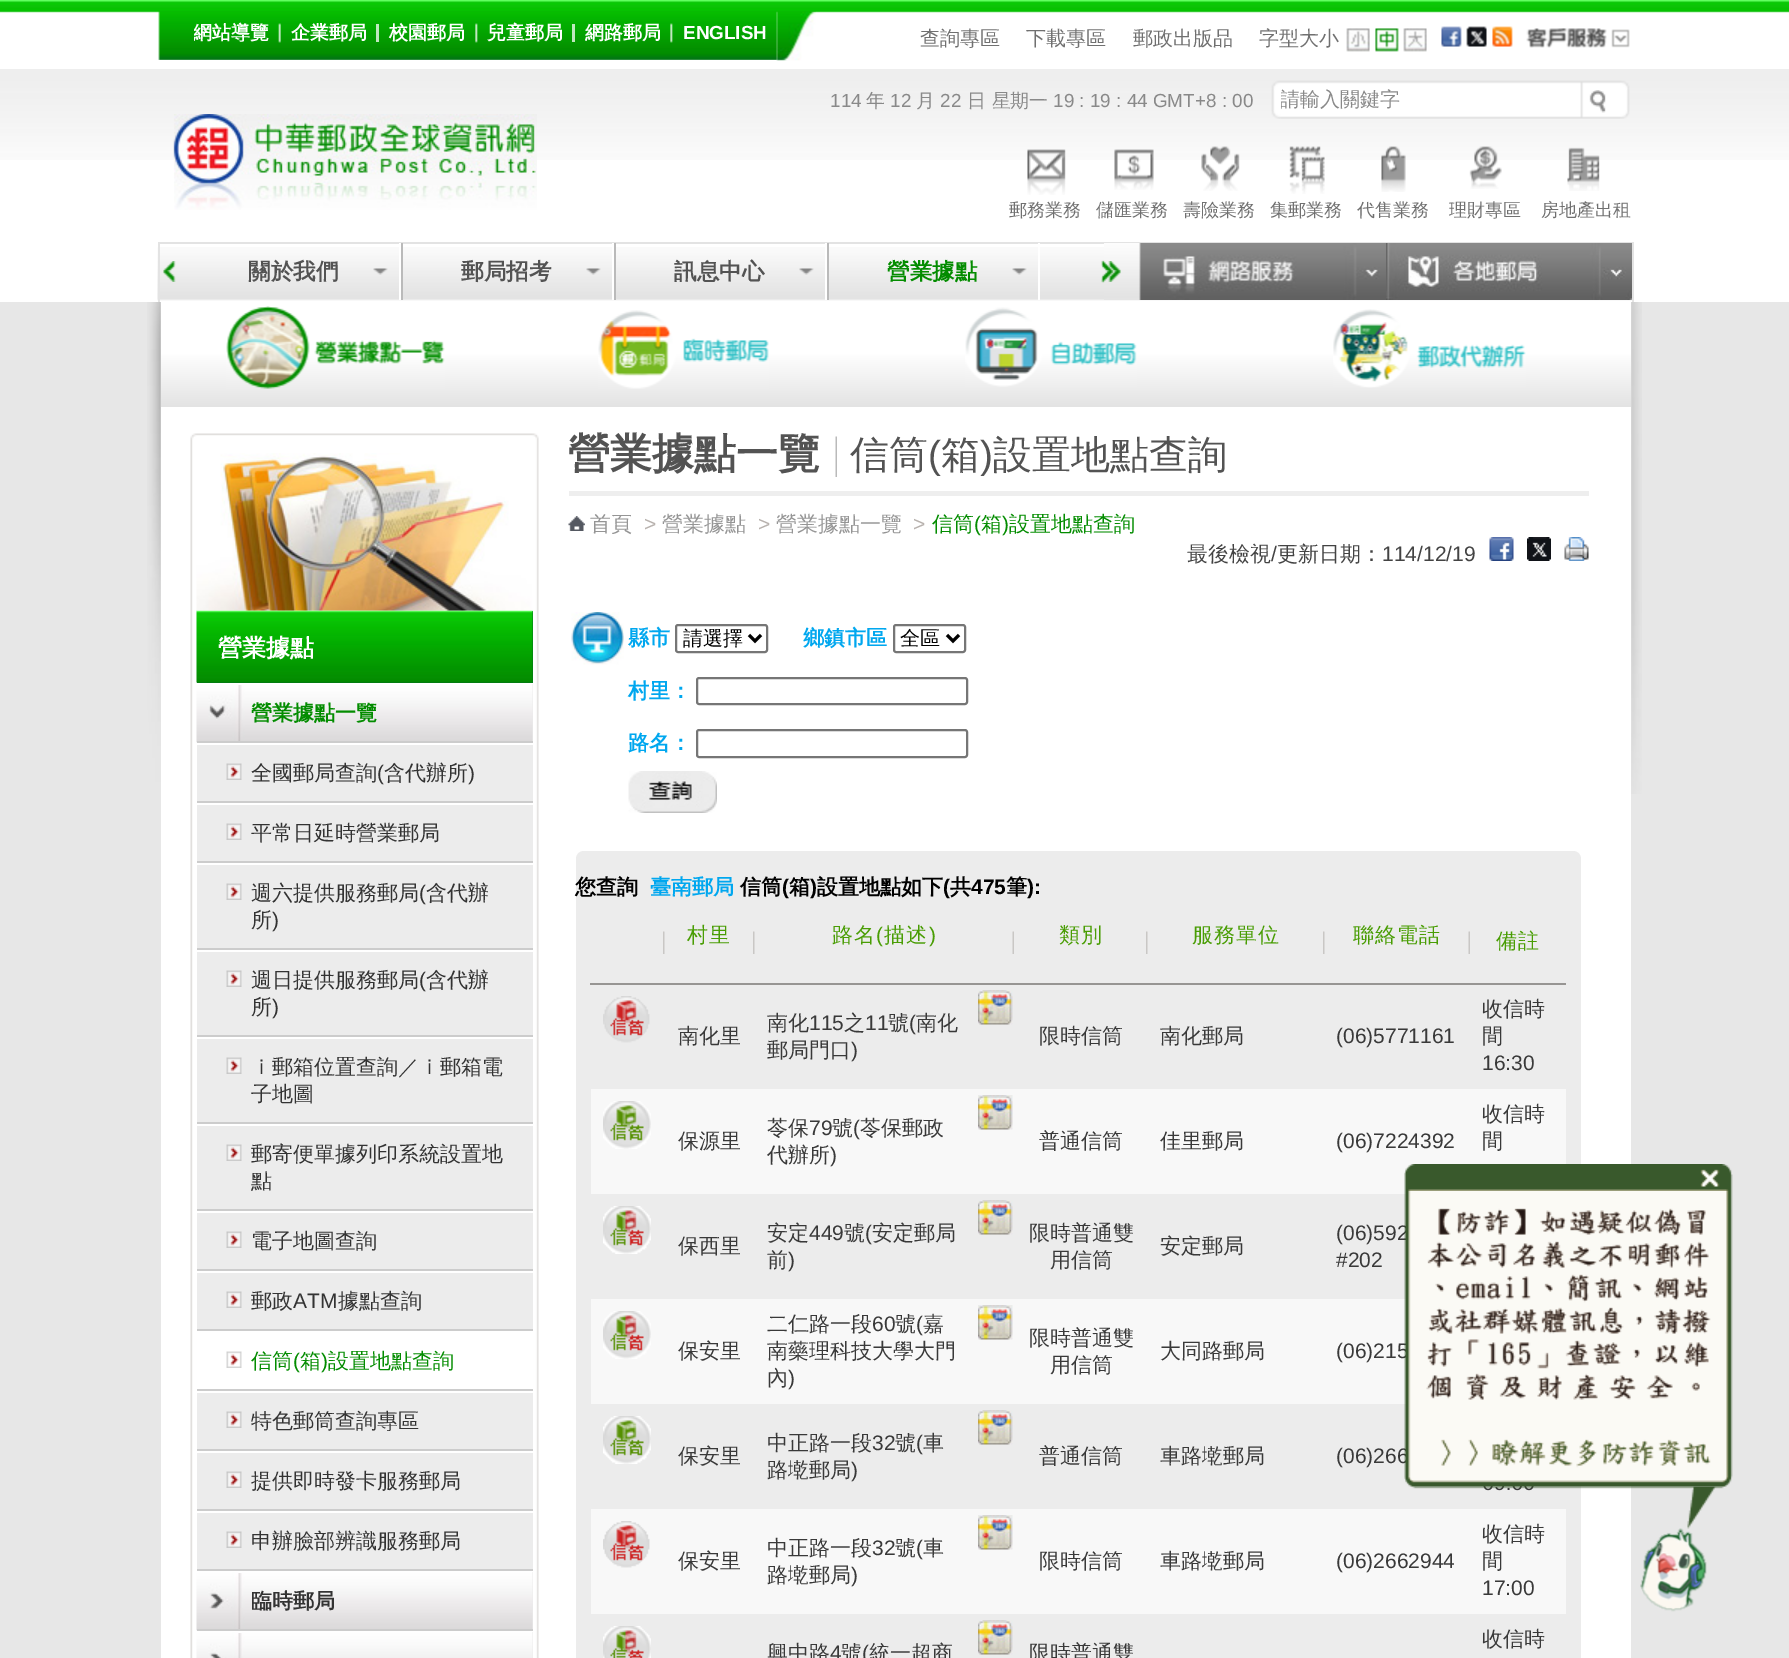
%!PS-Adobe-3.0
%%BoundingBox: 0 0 1789 1658
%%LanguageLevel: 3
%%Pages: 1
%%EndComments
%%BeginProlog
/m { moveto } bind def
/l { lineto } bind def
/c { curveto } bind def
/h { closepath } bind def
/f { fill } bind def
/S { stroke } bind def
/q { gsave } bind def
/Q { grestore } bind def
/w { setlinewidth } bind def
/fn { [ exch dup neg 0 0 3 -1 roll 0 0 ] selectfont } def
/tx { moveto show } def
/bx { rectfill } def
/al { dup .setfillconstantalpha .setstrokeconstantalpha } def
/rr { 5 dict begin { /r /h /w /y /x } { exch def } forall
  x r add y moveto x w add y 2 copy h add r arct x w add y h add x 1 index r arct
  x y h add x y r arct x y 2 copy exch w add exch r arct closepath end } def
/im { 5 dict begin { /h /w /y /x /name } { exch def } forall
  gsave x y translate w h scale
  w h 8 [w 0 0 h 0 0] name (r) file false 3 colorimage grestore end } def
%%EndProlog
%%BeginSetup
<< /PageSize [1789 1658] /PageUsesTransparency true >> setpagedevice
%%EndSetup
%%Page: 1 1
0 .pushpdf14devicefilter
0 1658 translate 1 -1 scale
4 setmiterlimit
1 setgray
0 0 1789 1658 bx
(image0.raw) 0 0 1789 13 im
(image1.raw) 158 11 620 49 im
q
194 20 75 27 rectclip
/WenQuanYiZenHei-Bold 18.9 fn
(網站導覽) 193 39 tx
Q
(image2.raw) 278 23 3 20 im
/WenQuanYiZenHei-Bold 18.9 fn
(企業郵局) 291 39 tx
0.75 al
376 24 3 18 bx
1 al
(校園郵局) 389 39 tx
(image3.raw) 475 23 3 20 im
(兒童郵局) 487 39 tx
0.75 al
572 24 3 18 bx
1 al
(網路郵局) 585 39 tx
(image3.raw) 670 23 3 20 im
/LiberationSans-Bold 18.9 fn
(ENGLISH) 683 39 tx
(image4.raw) 776 11 40 50 im
/WenQuanYiZenHei-Medium 20 fn
0.439 setgray
(查詢專區) 920 45 tx
(下載專區) 1026 45 tx
(郵政出版品) 1133 45 tx
(字型大小) 1259 45 tx
(image5.raw) 1346 28 24 24 im
(image6.raw) 1375 28 24 24 im
(image7.raw) 1403 28 24 24 im
(image8.raw) 1441 26 21 21 im
(image9.raw) 1466 26 21 21 im
(image10.raw) 1492 26 21 21 im
(image11.raw) 1526 28 104 20 im
(image12.raw) 0 69 1789 91 im
/LiberationSans-Regular 18.9 fn
0.537 setgray
(114) 830 107 tx
/WenQuanYiZenHei-Medium 18.9 fn
(年) 866 107 tx
/LiberationSans-Regular 18.9 fn
(12) 890 107 tx
/WenQuanYiZenHei-Medium 18.9 fn
(月) 916 107 tx
/LiberationSans-Regular 18.9 fn
(22) 940 107 tx
/WenQuanYiZenHei-Medium 18.9 fn
(日 星期一) 967 107 tx
/LiberationSans-Regular 18.9 fn
(19 : 19 : 44 GMT+8 : 00) 1053 107 tx
(image13.raw) 1271 80 359 39 im
q
1281 87 278 27 rectclip
/WenQuanYiZenHei-Medium 20 fn
(請輸入關鍵字) 1280 106 tx
Q
(image14.raw) 1589 90 17 23 im
(image15.raw) 173 114 364 96 im
(image16.raw) 1027 149 39 46 im
/WenQuanYiZenHei-Medium 18 fn
0.439 setgray
(郵務業務) 1009 216 tx
(image17.raw) 1114 149 40 41 im
(儲匯業務) 1096 216 tx
(image18.raw) 1201 146 39 45 im
(壽險業務) 1183 216 tx
(image19.raw) 1289 146 36 48 im
(集郵業務) 1270 216 tx
(image20.raw) 1381 146 25 46 im
(代售業務) 1357 216 tx
(image21.raw) 1469 146 33 43 im
(理財專區) 1449 216 tx
(image22.raw) 1567 147 33 44 im
(房地產出租) 1541 216 tx
(image23.raw) 157 247 1475 54 im
0.89 setgray
158 242 1476 2 bx
1632 242 2 60 bx
158 242 2 60 bx
(image24.raw) 163 261 13 21 im
1 setgray
399 243 2 57 bx
(image25.raw) 373 268 15 7 im
/WenQuanYiZenHei-Bold 22.5 fn
0.325 setgray
(關於我們) 248 279 tx
1 setgray
612 243 2 57 bx
0.729 setgray
401 243 2 57 bx
(image25.raw) 586 268 15 7 im
0.325 setgray
(郵局招考) 461 279 tx
1 setgray
825 243 2 57 bx
0.729 setgray
614 243 2 57 bx
(image25.raw) 799 268 15 7 im
0.325 setgray
(訊息中心) 674 279 tx
1 setgray
1038 243 2 57 bx
0.729 setgray
827 243 2 57 bx
(image25.raw) 1012 268 15 7 im
0.012 0.549 0 setrgbcolor
(營業據點) 887 279 tx
(image26.raw) 1104 243 37 57 im
(image27.raw) 1108 261 13 21 im
(image28.raw) 1101 260 13 23 im
(image29.raw) 1139 243 247 57 im
(image30.raw) 1386 243 246 57 im
0.906 setgray
0 302 1789 1356 bx
(image31.raw) 147 302 1495 492 im
1 setgray
161 407 1470 1251 bx
q 161 302 m 1631 302 l 1631 407 l 161 407 l h clip newpath
<< /ShadingType 2 /ColorSpace /DeviceRGB /Coords [896 301 896 407] /Extend [true true] /Function << /FunctionType 3 /Domain [0 1] /Functions [<< /FunctionType 2 /Domain [0 1] /C0 [1 1 1] /C1 [1 1 1] /N 1 >> << /FunctionType 2 /Domain [0 1] /C0 [1 1 1] /C1 [0.89 0.89 0.89] /N 1 >>] /Bounds [0.49] /Encode [0 1 0 1] >> >> shfill Q
(image32.raw) 226 306 219 83 im
(image33.raw) 598 310 171 79 im
(image34.raw) 965 307 172 80 im
(image35.raw) 1333 309 193 79 im
(image36.raw) 190 433 349 8 im
(image37.raw) 190 441 349 1217 im
0.004 0.451 0.11 setrgbcolor
197 611 336 72 bx
(image39.raw) 196 610 337 73 im
(image38.raw) 196 453 337 158 im
/WenQuanYiZenHei-Bold 24 fn
1 setgray
(營業據點) 218 656 tx
0.925 setgray
532 685 1 56 bx
(image40.raw) 196 684 337 59 im
1 setgray
238 684 4 1 bx
0.8 setgray
197 741 336 2 bx
/WenQuanYiZenHei-Bold 21 fn
0.012 0.549 0 setrgbcolor
(營業據點一覽) 251 720 tx
0.925 setgray
197 745 336 56 bx
(image41.raw) 226 763 16 17 im
0.8 setgray
197 801 336 2 bx
/WenQuanYiZenHei-Medium 21 fn
0.2 setgray
(全國郵局查詢) 251 780 tx
/LiberationSans-Regular 21 fn
(\() 377 780 tx
/WenQuanYiZenHei-Medium 21 fn
(含代辦所) 384 780 tx
/LiberationSans-Regular 21 fn
(\)) 468 780 tx
0.925 setgray
197 805 336 56 bx
(image41.raw) 226 823 16 17 im
0.8 setgray
197 861 336 2 bx
/WenQuanYiZenHei-Medium 21 fn
0.2 setgray
(平常日延時營業郵局) 251 840 tx
0.925 setgray
197 865 336 83 bx
(image41.raw) 226 883 16 17 im
0.8 setgray
197 948 336 2 bx
0.2 setgray
(週六提供服務郵局) 251 900 tx
/LiberationSans-Regular 21 fn
(\() 419 900 tx
/WenQuanYiZenHei-Medium 21 fn
(含代辦) 426 900 tx
(所) 251 927 tx
/LiberationSans-Regular 21 fn
(\)) 272 927 tx
0.925 setgray
197 952 336 83 bx
(image41.raw) 226 970 16 17 im
0.8 setgray
197 1035 336 2 bx
/WenQuanYiZenHei-Medium 21 fn
0.2 setgray
(週日提供服務郵局) 251 987 tx
/LiberationSans-Regular 21 fn
(\() 419 987 tx
/WenQuanYiZenHei-Medium 21 fn
(含代辦) 426 987 tx
(所) 251 1014 tx
/LiberationSans-Regular 21 fn
(\)) 272 1014 tx
0.925 setgray
197 1039 336 83 bx
(image41.raw) 226 1057 16 17 im
0.8 setgray
197 1122 336 2 bx
/WenQuanYiZenHei-Medium 21 fn
0.2 setgray
(ｉ郵箱位置查詢／ｉ郵箱電) 251 1074 tx
(子地圖) 251 1101 tx
0.925 setgray
197 1126 336 83 bx
(image41.raw) 226 1144 16 17 im
0.8 setgray
197 1209 336 2 bx
0.2 setgray
(郵寄便單據列印系統設置地) 251 1161 tx
(點) 251 1188 tx
0.925 setgray
197 1213 336 56 bx
(image41.raw) 226 1231 16 17 im
0.8 setgray
197 1269 336 2 bx
0.2 setgray
(電子地圖查詢) 251 1248 tx
0.925 setgray
197 1273 336 56 bx
(image41.raw) 226 1291 16 17 im
0.8 setgray
197 1329 336 2 bx
0.2 setgray
(郵政) 251 1308 tx
/LiberationSans-Regular 21 fn
(ATM) 293 1308 tx
/WenQuanYiZenHei-Medium 21 fn
(據點查詢) 338 1308 tx
(image42.raw) 226 1351 16 17 im
0.8 setgray
197 1389 336 2 bx
0.012 0.549 0 setrgbcolor
(信筒) 251 1368 tx
/LiberationSans-Regular 21 fn
(\() 293 1368 tx
/WenQuanYiZenHei-Medium 21 fn
(箱) 300 1368 tx
/LiberationSans-Regular 21 fn
(\)) 321 1368 tx
/WenQuanYiZenHei-Medium 21 fn
(設置地點查詢) 328 1368 tx
0.925 setgray
197 1393 336 56 bx
(image41.raw) 226 1411 16 17 im
0.8 setgray
197 1449 336 2 bx
0.2 setgray
(特色郵筒查詢專區) 251 1428 tx
0.925 setgray
197 1453 336 56 bx
(image41.raw) 226 1471 16 17 im
0.8 setgray
197 1509 336 2 bx
0.2 setgray
(提供即時發卡服務郵局) 251 1488 tx
0.925 setgray
197 1513 336 56 bx
(image41.raw) 226 1531 16 17 im
0.8 setgray
197 1569 336 2 bx
0.2 setgray
(申辦臉部辨識服務郵局) 251 1548 tx
0.925 setgray
532 1573 1 56 bx
(image43.raw) 196 1572 337 59 im
1 setgray
238 1572 4 1 bx
0.8 setgray
197 1629 336 2 bx
/WenQuanYiZenHei-Bold 21 fn
0.2 setgray
(臨時郵局) 251 1608 tx
0.925 setgray
532 1633 1 25 bx
(image44.raw) 196 1632 337 26 im
1 setgray
238 1632 4 1 bx
0.933 setgray
569 491 1020 5 bx
/WenQuanYiZenHei-Bold 42 fn
0.325 setgray
(營業據點一覽) 568 468 tx
(image45.raw) 835 436 2 41 im
/WenQuanYiZenHei-Medium 39 fn
(信筒) 850 468 tx
/LiberationSans-Regular 39 fn
(\() 928 468 tx
/WenQuanYiZenHei-Medium 39 fn
(箱) 941 468 tx
/LiberationSans-Regular 39 fn
(\)) 980 468 tx
/WenQuanYiZenHei-Medium 39 fn
(設置地點查詢) 993 468 tx
(image46.raw) 568 516 17 15 im
/WenQuanYiZenHei-Medium 21 fn
0.584 setgray
(首頁) 590 531 tx
/LiberationSans-Regular 21 fn
0.722 0.698 0.682 setrgbcolor
(>) 644 531 tx
/WenQuanYiZenHei-Medium 21 fn
0.584 setgray
(營業據點) 662 531 tx
/LiberationSans-Regular 21 fn
0.722 0.698 0.682 setrgbcolor
(>) 758 531 tx
/WenQuanYiZenHei-Medium 21 fn
0.584 setgray
(營業據點一覽) 776 531 tx
/LiberationSans-Regular 21 fn
0.722 0.698 0.682 setrgbcolor
(>) 913 531 tx
/WenQuanYiZenHei-Medium 21 fn
0.012 0.549 0 setrgbcolor
(信筒) 932 531 tx
/LiberationSans-Regular 21 fn
(\() 974 531 tx
/WenQuanYiZenHei-Medium 21 fn
(箱) 981 531 tx
/LiberationSans-Regular 21 fn
(\)) 1002 531 tx
/WenQuanYiZenHei-Medium 21 fn
(設置地點查詢) 1009 531 tx
0.263 setgray
(最後檢視) 1187 561 tx
/LiberationSans-Regular 21 fn
(/) 1271 561 tx
/WenQuanYiZenHei-Medium 21 fn
(更新日期：) 1277 561 tx
/LiberationSans-Regular 21 fn
(114/12/19) 1382 561 tx
(image47.raw) 1489 537 25 24 im
(image48.raw) 1527 537 24 24 im
(image49.raw) 1564 537 25 24 im
(image50.raw) 571 612 53 53 im
/WenQuanYiZenHei-Bold 21 fn
0 0.655 0.937 setrgbcolor
(縣市) 628 645 tx
0.463 setgray
2 w
676 625 91 27 2 rr S
0 setgray
3 w
749 635 m 755 641 l 761 635 l S
/WenQuanYiZenHei-Medium 20 fn
(請選擇) 683 645 tx
/WenQuanYiZenHei-Bold 21 fn
0 0.655 0.937 setrgbcolor
(鄉鎮市區) 803 645 tx
0.463 setgray
2 w
894 625 71 27 2 rr S
0 setgray
3 w
947 635 m 953 641 l 959 635 l S
/WenQuanYiZenHei-Medium 20 fn
(全區) 900 645 tx
/WenQuanYiZenHei-Bold 21 fn
0 0.655 0.937 setrgbcolor
(村里：) 628 698 tx
0.463 setgray
2 w
697 678 270 26 2 rr S
0 0.655 0.937 setrgbcolor
(路名：) 628 750 tx
0.463 setgray
697 730 270 27 2 rr S
(image51.raw) 628 771 89 42 im
0.925 setgray
584 851 m 1573 851 l 1577.5 851 1581 854.5 1581 859 c 1581 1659 l 576 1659 l 576 859 l 576 854.5 579.5 851 584 851 c h f
0 setgray
(您查詢) 575 894 tx
0 0.655 0.937 setrgbcolor
(臺南郵局) 650 894 tx
0 setgray
(信筒) 740 894 tx
/LiberationSans-Bold 21 fn
(\() 782 894 tx
/WenQuanYiZenHei-Bold 21 fn
(箱) 789 894 tx
/LiberationSans-Bold 21 fn
(\)) 810 894 tx
/WenQuanYiZenHei-Bold 21 fn
(設置地點如下) 817 894 tx
/LiberationSans-Bold 21 fn
(\() 943 894 tx
/WenQuanYiZenHei-Bold 21 fn
(共) 950 894 tx
/LiberationSans-Bold 21 fn
(475) 971 894 tx
/WenQuanYiZenHei-Bold 21 fn
(筆) 1006 894 tx
/LiberationSans-Bold 21 fn
(\):) 1027 894 tx
(image52.raw) 663 931 2 23 im
(image52.raw) 753 931 2 23 im
/WenQuanYiZenHei-Medium 21 fn
0.286 0.616 0.016 setrgbcolor
687 942 m 1 0 (村里) ashow
(image53.raw) 1012 931 2 23 im
832 942 m 1 0 (路名) ashow
/LiberationSans-Regular 21 fn
876 942 m 1 0 (\() ashow
/WenQuanYiZenHei-Medium 21 fn
884 942 m 1 0 (描述) ashow
/LiberationSans-Regular 21 fn
929 942 m 1 0 (\)) ashow
(image52.raw) 1146 931 2 23 im
/WenQuanYiZenHei-Medium 21 fn
1059 942 m 1 0 (類別) ashow
(image52.raw) 1323 931 2 23 im
1192 942 m 1 0 (服務單位) ashow
(image53.raw) 1468 931 2 23 im
1353 942 m 1 0 (聯絡電話) ashow
0.592 0.584 0.576 setrgbcolor
590 983 976 2 bx
0.286 0.616 0.016 setrgbcolor
1496 948 m 1 0 (備註) ashow
(image54.raw) 603 996 47 47 im
0.224 setgray
(南化里) 678 1043 tx
(南化) 767 1030 tx
/LiberationSans-Regular 21 fn
(115) 809 1030 tx
/WenQuanYiZenHei-Medium 21 fn
(之) 844 1030 tx
/LiberationSans-Regular 21 fn
(11) 865 1030 tx
/WenQuanYiZenHei-Medium 21 fn
(號) 888 1030 tx
/LiberationSans-Regular 21 fn
(\() 909 1030 tx
/WenQuanYiZenHei-Medium 21 fn
(南化) 916 1030 tx
(郵局門口) 767 1057 tx
/LiberationSans-Regular 21 fn
(\)) 851 1057 tx
(image55.raw) 978 990 35 35 im
/WenQuanYiZenHei-Medium 21 fn
(限時信筒) 1039 1043 tx
(南化郵局) 1160 1043 tx
/LiberationSans-Regular 21 fn
(\(06\)5771161) 1336 1043 tx
/WenQuanYiZenHei-Medium 21 fn
(收信時) 1482 1016 tx
(間) 1482 1043 tx
/LiberationSans-Regular 21 fn
(16:30) 1482 1070 tx
0.973 setgray
591 1089 975 105 bx
(image56.raw) 603 1101 48 48 im
/WenQuanYiZenHei-Medium 21 fn
0.224 setgray
(保源里) 678 1148 tx
(苓保) 767 1135 tx
/LiberationSans-Regular 21 fn
(79) 809 1135 tx
/WenQuanYiZenHei-Medium 21 fn
(號) 832 1135 tx
/LiberationSans-Regular 21 fn
(\() 853 1135 tx
/WenQuanYiZenHei-Medium 21 fn
(苓保郵政) 860 1135 tx
(代辦所) 767 1162 tx
/LiberationSans-Regular 21 fn
(\)) 830 1162 tx
(image57.raw) 978 1095 35 35 im
/WenQuanYiZenHei-Medium 21 fn
(普通信筒) 1039 1148 tx
(佳里郵局) 1160 1148 tx
/LiberationSans-Regular 21 fn
(\(06\)7224392) 1336 1148 tx
/WenQuanYiZenHei-Medium 21 fn
(收信時) 1482 1121 tx
(間) 1482 1148 tx
(image58.raw) 603 1206 48 48 im
(保西里) 678 1253 tx
(安定) 767 1240 tx
/LiberationSans-Regular 21 fn
(449) 809 1240 tx
/WenQuanYiZenHei-Medium 21 fn
(號) 844 1240 tx
/LiberationSans-Regular 21 fn
(\() 865 1240 tx
/WenQuanYiZenHei-Medium 21 fn
(安定郵局) 872 1240 tx
(前) 767 1267 tx
/LiberationSans-Regular 21 fn
(\)) 788 1267 tx
(image55.raw) 978 1200 35 35 im
/WenQuanYiZenHei-Medium 21 fn
(限時普通雙) 1029 1240 tx
(用信筒) 1050 1267 tx
(安定郵局) 1160 1253 tx
/LiberationSans-Regular 21 fn
(\(06\)592) 1336 1240 tx
(#202) 1336 1267 tx
0.973 setgray
591 1299 815 105 bx
(image59.raw) 603 1311 48 48 im
/WenQuanYiZenHei-Medium 21 fn
0.224 setgray
(保安里) 678 1358 tx
(二仁路一段) 767 1331 tx
/LiberationSans-Regular 21 fn
(60) 872 1331 tx
/WenQuanYiZenHei-Medium 21 fn
(號) 895 1331 tx
/LiberationSans-Regular 21 fn
(\() 916 1331 tx
/WenQuanYiZenHei-Medium 21 fn
(嘉) 923 1331 tx
(南藥理科技大學大門) 767 1358 tx
(內) 767 1385 tx
/LiberationSans-Regular 21 fn
(\)) 788 1385 tx
(image57.raw) 978 1305 35 35 im
/WenQuanYiZenHei-Medium 21 fn
(限時普通雙) 1029 1345 tx
(用信筒) 1050 1372 tx
(大同路郵局) 1160 1358 tx
/LiberationSans-Regular 21 fn
(\(06\)215) 1336 1358 tx
(image60.raw) 603 1416 48 48 im
/WenQuanYiZenHei-Medium 21 fn
(保安里) 678 1463 tx
(中正路一段) 767 1450 tx
/LiberationSans-Regular 21 fn
(32) 872 1450 tx
/WenQuanYiZenHei-Medium 21 fn
(號) 895 1450 tx
/LiberationSans-Regular 21 fn
(\() 916 1450 tx
/WenQuanYiZenHei-Medium 21 fn
(車) 923 1450 tx
(路墘郵局) 767 1477 tx
/LiberationSans-Regular 21 fn
(\)) 851 1477 tx
(image61.raw) 978 1410 35 35 im
/WenQuanYiZenHei-Medium 21 fn
(普通信筒) 1039 1463 tx
(車路墘郵局) 1160 1463 tx
/LiberationSans-Regular 21 fn
(\(06\)266) 1336 1463 tx
0.973 setgray
591 1509 975 105 bx
(image62.raw) 603 1521 47 47 im
/WenQuanYiZenHei-Medium 21 fn
0.224 setgray
(保安里) 678 1568 tx
(中正路一段) 767 1555 tx
/LiberationSans-Regular 21 fn
(32) 872 1555 tx
/WenQuanYiZenHei-Medium 21 fn
(號) 895 1555 tx
/LiberationSans-Regular 21 fn
(\() 916 1555 tx
/WenQuanYiZenHei-Medium 21 fn
(車) 923 1555 tx
(路墘郵局) 767 1582 tx
/LiberationSans-Regular 21 fn
(\)) 851 1582 tx
(image57.raw) 978 1515 35 35 im
/WenQuanYiZenHei-Medium 21 fn
(限時信筒) 1039 1568 tx
(車路墘郵局) 1160 1568 tx
/LiberationSans-Regular 21 fn
(\(06\)2662944) 1336 1568 tx
/WenQuanYiZenHei-Medium 21 fn
(收信時) 1482 1541 tx
(間) 1482 1568 tx
/LiberationSans-Regular 21 fn
(17:00) 1482 1595 tx
(image63.raw) 603 1626 48 32 im
/WenQuanYiZenHei-Medium 21 fn
(興中路) 767 1660 tx
/LiberationSans-Regular 21 fn
(4) 830 1660 tx
/WenQuanYiZenHei-Medium 21 fn
(號) 841 1660 tx
/LiberationSans-Regular 21 fn
(\() 862 1660 tx
/WenQuanYiZenHei-Medium 21 fn
(統一超商) 869 1660 tx
(image55.raw) 978 1620 35 35 im
(限時普通雙) 1029 1660 tx
(收信時) 1482 1646 tx
(image64.raw) 1404 1164 329 27 im
(image65.raw) 1404 1191 329 234 im
(image66.raw) 1404 1425 329 62 im
(image68.raw) 1640 1528 67 84 im
(image67.raw) 1411 1486 313 43 im
.poppdf14devicefilter showpage
%%EOF
